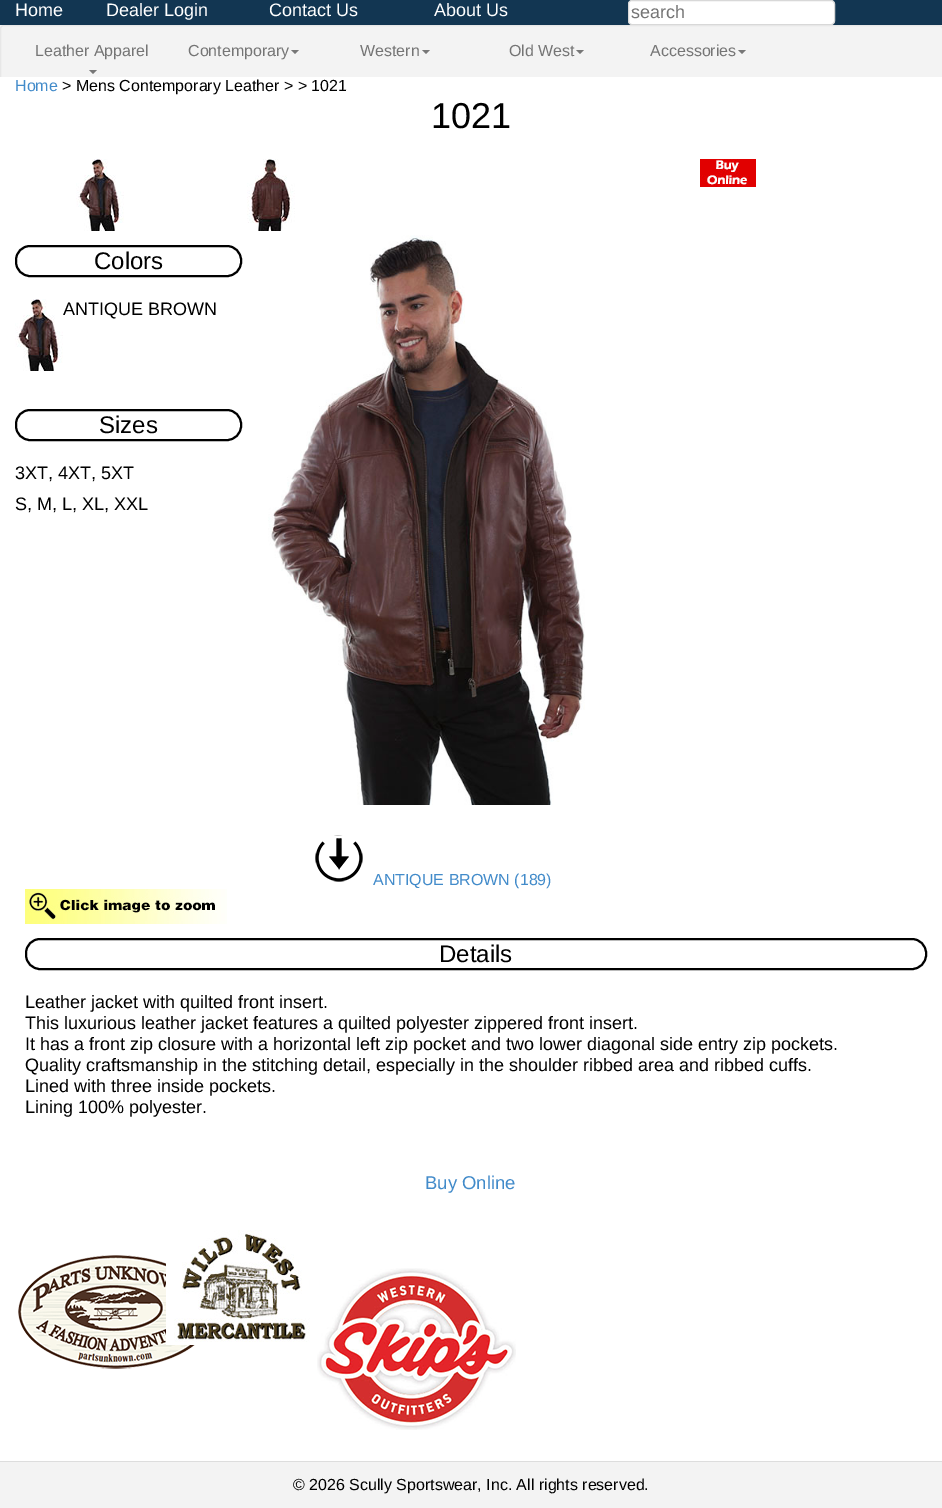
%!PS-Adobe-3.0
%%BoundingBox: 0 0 942 1508
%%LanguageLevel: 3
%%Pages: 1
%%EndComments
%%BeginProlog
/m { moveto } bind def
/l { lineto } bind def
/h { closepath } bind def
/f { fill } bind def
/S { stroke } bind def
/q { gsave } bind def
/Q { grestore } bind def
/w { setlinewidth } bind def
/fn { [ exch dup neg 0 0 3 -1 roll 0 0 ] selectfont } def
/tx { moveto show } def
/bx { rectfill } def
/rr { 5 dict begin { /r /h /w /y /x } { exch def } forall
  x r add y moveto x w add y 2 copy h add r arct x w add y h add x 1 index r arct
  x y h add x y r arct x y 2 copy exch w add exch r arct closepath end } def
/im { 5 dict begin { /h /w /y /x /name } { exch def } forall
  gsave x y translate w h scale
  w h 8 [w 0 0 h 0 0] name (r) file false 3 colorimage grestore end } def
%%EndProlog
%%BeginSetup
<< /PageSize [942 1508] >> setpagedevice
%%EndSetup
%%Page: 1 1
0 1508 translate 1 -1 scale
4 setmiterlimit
0.071 0.212 0.322 setrgbcolor
0 0 942 1508 bx
/LiberationSans-Regular 18 fn
1 setgray
(Home) 15 16 tx
(Dealer Login) 106 16 tx
(Contact Us) 269 16 tx
(About Us) 434 16 tx
628.5 0.5 206 24 3.5 rr q f Q
0.847 setgray
S
0.459 setgray
(search) 631 18 tx
0.953 setgray
0 25 942 52 bx
0.906 setgray
0.5 25.5 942 171 3.5 rr S
/LiberationSans-Regular 16 fn
0.459 setgray
(Leather Apparel) 35 56 tx
0.467 setgray
89 70 m 97 70 l 93 74 l h f
0.459 setgray
(Contemporary) 188 56 tx
0.467 setgray
291 50 m 299 50 l 295 54 l h f
0.459 setgray
(Western) 360 56 tx
0.467 setgray
422 50 m 430 50 l 426 54 l h f
0.459 setgray
(Old West) 509 56 tx
0.467 setgray
576 50 m 584 50 l 580 54 l h f
0.459 setgray
(Accessories) 650 56 tx
0.467 setgray
738 50 m 746 50 l 742 54 l h f
1 setgray
0 77 942 1384 bx
0.259 0.545 0.792 setrgbcolor
(Home) 15 91 tx
0 setgray
(> Mens Contemporary Leather > > 1021) 62 91 tx
/LiberationSans-Regular 36 fn
(1021) 431 128 tx
(image0.raw) 76 159 48 72 im
(image1.raw) 247 159 48 72 im
(image2.raw) 700 159 56 28 im
2 w
16 246 225 30 14 rr S
/LiberationSans-Regular 24 fn
(Colors) 94 269 tx
(image3.raw) 15 299 48 72 im
/LiberationSans-Regular 18 fn
(ANTIQUE BROWN) 63 315 tx
16 410 225 30 14 rr S
/LiberationSans-Regular 24 fn
(Sizes) 99 433 tx
/LiberationSans-Regular 18 fn
(3XT, 4XT, 5XT) 15 479 tx
(S, M, L, XL, XXL) 15 510 tx
(image4.raw) 268 235 317 570 im
(image5.raw) 315 835 48 47 im
/LiberationSans-Regular 16 fn
0.259 0.545 0.792 setrgbcolor
(ANTIQUE BROWN \(189\)) 373 885 tx
(image6.raw) 25 889 202 35 im
0 setgray
26 939 900 30 14 rr S
/LiberationSans-Regular 24 fn
(Details) 439 962 tx
/LiberationSans-Regular 18 fn
(Leather jacket with quilted front insert.) 25 1008 tx
(This luxurious leather jacket features a quilted polyester zippered front insert.) 25 1029 tx
(It has a front zip closure with a horizontal left zip pocket and two lower diagonal side entry zip pockets.) 25 1050 tx
(Quality craftsmanship in the stitching detail, especially in the shoulder ribbed area and ribbed cuffs.) 25 1071 tx
(Lined with three inside pockets.) 25 1092 tx
(Lining 100% polyester.) 25 1113 tx
/LiberationSans-Regular 18.5 fn
0.259 0.545 0.792 setrgbcolor
(Buy Online) 425 1189 tx
(image7.raw) 18 1255 177 114 im
(image8.raw) 166 1230 144 115 im
(image9.raw) 317 1268 199 162 im
0.953 setgray
0 1462 942 46 bx
0.867 setgray
0 1461 942 1 bx
/LiberationSans-Regular 16 fn
0 setgray
(© 2026 Scully Sportswear, Inc. All rights reserved.) 293 1490 tx
showpage
%%EOF
